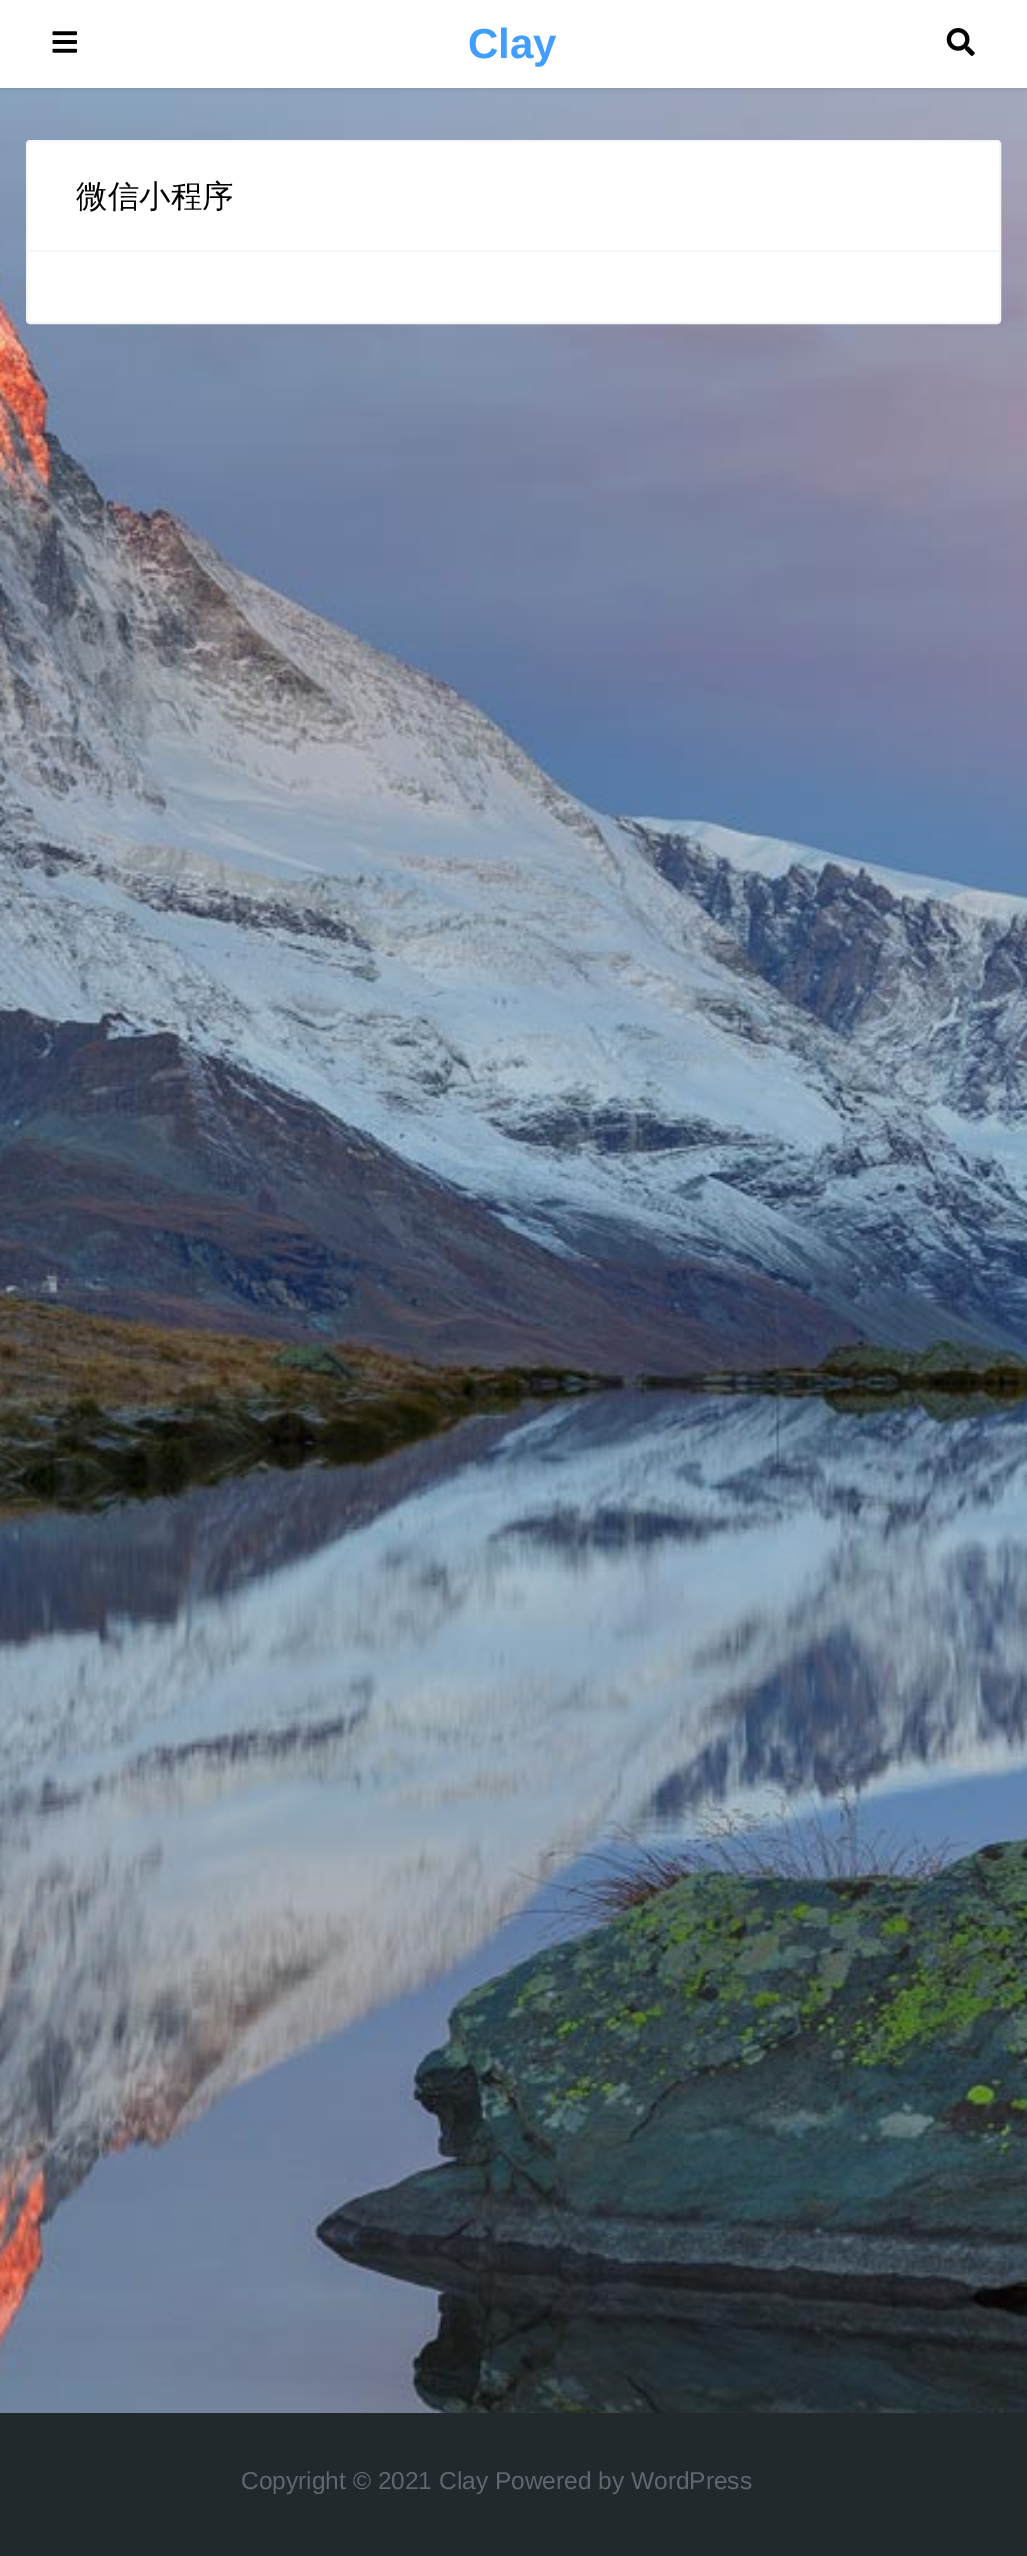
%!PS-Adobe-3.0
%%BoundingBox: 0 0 1027 2556
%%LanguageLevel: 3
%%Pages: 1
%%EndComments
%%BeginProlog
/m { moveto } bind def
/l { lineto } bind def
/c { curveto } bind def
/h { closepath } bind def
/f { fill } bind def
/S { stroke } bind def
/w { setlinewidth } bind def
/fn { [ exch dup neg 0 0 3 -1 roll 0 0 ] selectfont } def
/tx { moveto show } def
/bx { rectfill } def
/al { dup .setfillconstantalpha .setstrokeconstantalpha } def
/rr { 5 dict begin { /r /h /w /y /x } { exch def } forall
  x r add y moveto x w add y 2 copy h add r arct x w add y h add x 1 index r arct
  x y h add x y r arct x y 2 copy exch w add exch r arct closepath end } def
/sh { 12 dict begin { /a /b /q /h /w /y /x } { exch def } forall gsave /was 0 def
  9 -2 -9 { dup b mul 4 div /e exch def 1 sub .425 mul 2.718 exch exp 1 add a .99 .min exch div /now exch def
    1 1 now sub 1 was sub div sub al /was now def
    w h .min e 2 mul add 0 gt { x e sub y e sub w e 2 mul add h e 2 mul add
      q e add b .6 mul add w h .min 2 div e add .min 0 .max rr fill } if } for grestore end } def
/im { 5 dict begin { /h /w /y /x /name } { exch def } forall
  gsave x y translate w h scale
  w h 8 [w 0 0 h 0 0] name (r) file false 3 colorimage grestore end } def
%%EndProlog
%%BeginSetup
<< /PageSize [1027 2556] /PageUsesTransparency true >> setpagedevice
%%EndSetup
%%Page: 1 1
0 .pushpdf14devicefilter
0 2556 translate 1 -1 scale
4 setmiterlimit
1 setgray
0 0 1027 2556 bx
(image0.raw) 0 88 1027 2325 im
0 setgray
-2 -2 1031 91 0 2.5 0.1 sh
1 setgray
0 0 1027 88 bx
(image1.raw) 52 31 25 22 im
/LiberationSans-Bold 42 fn
0.251 0.62 1 setrgbcolor
(Clay) 468 58 tx
(image2.raw) 946 28 29 28 im
0.961 0.965 0.969 setrgbcolor
2 w
27 141 973 182 3 rr S
1 setgray
30 142 m 997 142 l 998 142 999 143 999 144 c 999 252 l 28 252 l 28 144 l 28 143 29 142 30 142 c h f
0.961 0.965 0.969 setrgbcolor
28 250 971 2 bx
/WenQuanYiZenHei-Medium 31.5 fn
0 setgray
(微信小程序) 76 207 tx
1 setgray
28 252 m 999 252 l 999 320 l 999 321 998 322 997 322 c 30 322 l 29 322 28 321 28 320 c h f
0.133 0.161 0.176 setrgbcolor
0 2413 1027 143 bx
/LiberationSans-Regular 24.5 fn
0.373 0.404 0.435 setrgbcolor
(Copyright © 2021 Clay Powered by WordPress) 241 2489 tx
.poppdf14devicefilter showpage
%%EOF
